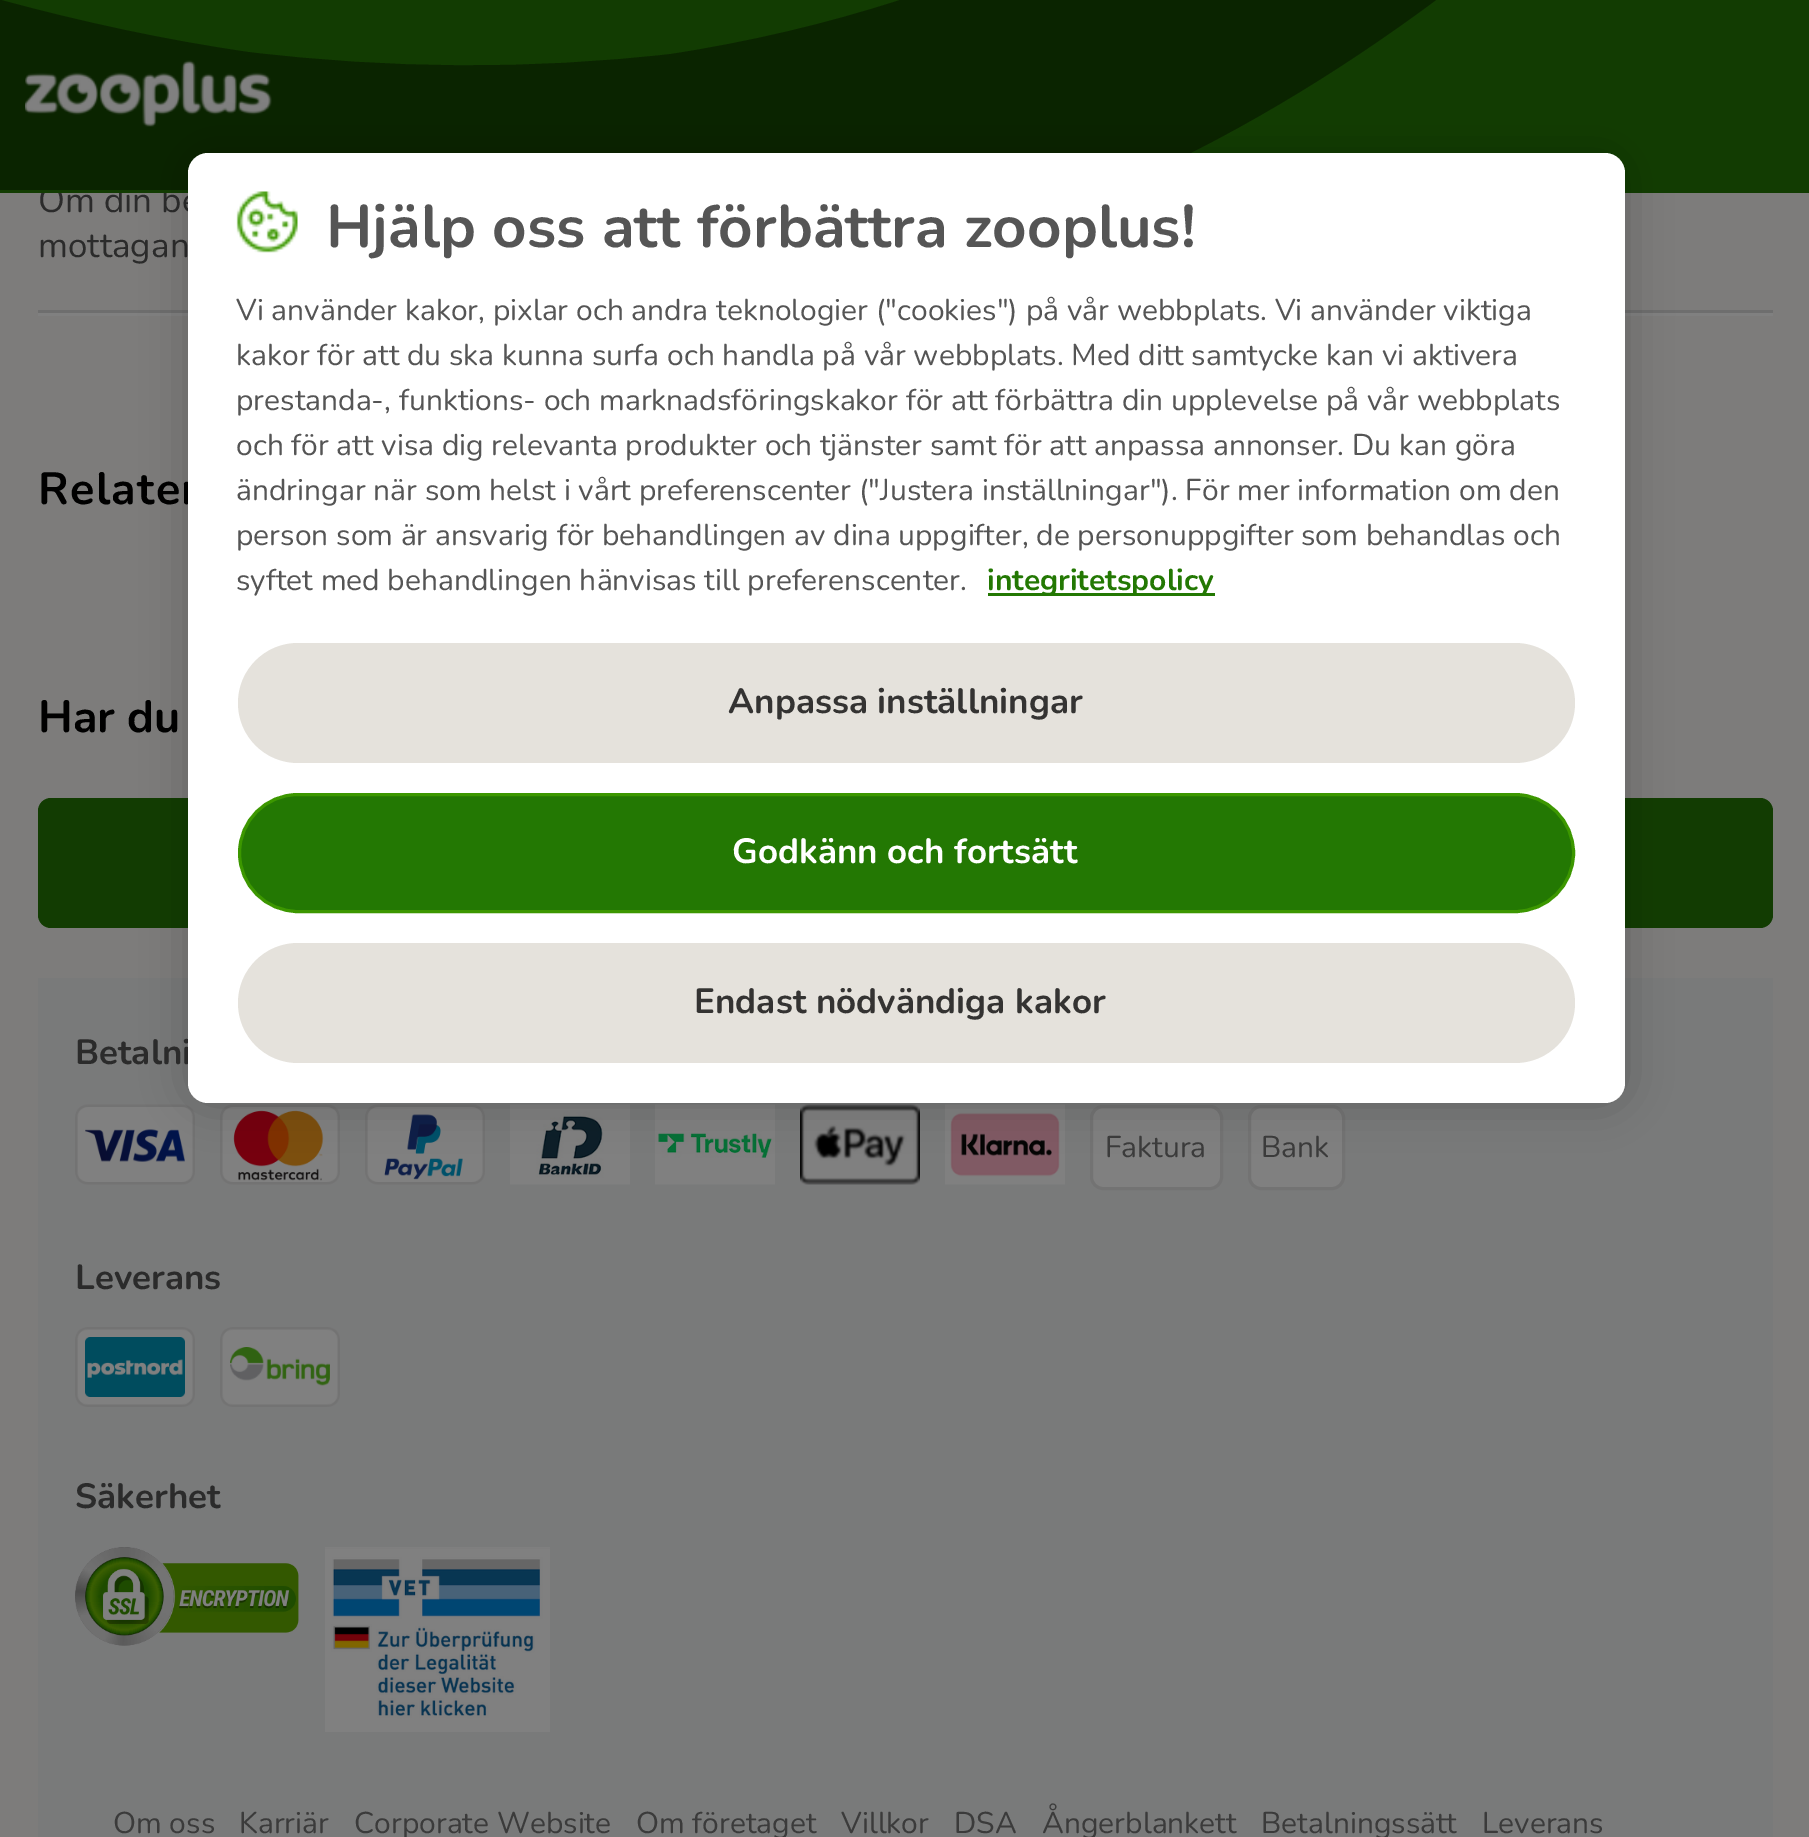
%!PS-Adobe-3.0
%%BoundingBox: 0 0 1809 1837
%%LanguageLevel: 3
%%Pages: 1
%%EndComments
%%BeginProlog
/m { moveto } bind def
/l { lineto } bind def
/c { curveto } bind def
/h { closepath } bind def
/f { fill } bind def
/S { stroke } bind def
/q { gsave } bind def
/Q { grestore } bind def
/w { setlinewidth } bind def
/fn { [ exch dup neg 0 0 3 -1 roll 0 0 ] selectfont } def
/tx { moveto show } def
/bx { rectfill } def
/al { dup .setfillconstantalpha .setstrokeconstantalpha } def
/rr { 5 dict begin { /r /h /w /y /x } { exch def } forall
  x r add y moveto x w add y 2 copy h add r arct x w add y h add x 1 index r arct
  x y h add x y r arct x y 2 copy exch w add exch r arct closepath end } def
/sh { 12 dict begin { /a /b /q /h /w /y /x } { exch def } forall gsave /was 0 def
  9 -2 -9 { dup b mul 4 div /e exch def 1 sub .425 mul 2.718 exch exp 1 add a .99 .min exch div /now exch def
    1 1 now sub 1 was sub div sub al /was now def
    w h .min e 2 mul add 0 gt { x e sub y e sub w e 2 mul add h e 2 mul add
      q e add b .6 mul add w h .min 2 div e add .min 0 .max rr fill } if } for grestore end } def
/im { 5 dict begin { /h /w /y /x /name } { exch def } forall
  gsave x y translate w h scale
  w h 8 [w 0 0 h 0 0] name (r) file false 3 colorimage grestore end } def
%%EndProlog
%%BeginSetup
<< /PageSize [1809 1837] /PageUsesTransparency true >> setpagedevice
%%EndSetup
%%Page: 1 1
0 .pushpdf14devicefilter
0 1837 translate 1 -1 scale
4 setmiterlimit
0.49 0.486 0.482 setrgbcolor
0 0 1809 1837 bx
/Nunito-Regular 35 fn
0.169 setgray
(Om din be) 38 212 tx
0.071 0.235 0.008 setrgbcolor
0 0 1809 193 bx
0.039 0.141 0 setrgbcolor
1112 190 m 1227 140 1335 75 1436 0 c 900 0 l 826 24 749 42 671 54 c 531 70 389 69 248 52 c 165 40 82 22 1 0 c -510 0 l -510 75 l -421 119 -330 157 -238 190 c h f
(image0.raw) 25 60 247 67 im
0.169 setgray
(mottagan) 38 257 tx
0.431 setgray
38 310 1735 3 bx
0.502 setgray
38 313 1735 3 bx
/Nunito-Bold 45 fn
0 setgray
38 504 m 1.25 0 (Relater) ashow
(Har du) 38 732 tx
0.071 0.235 0.008 setrgbcolor
38 798 1735 130 13 rr f
0.475 0.478 0.478 setrgbcolor
38 978 1735 859 bx
(image2.raw) 75 1104 120 81 im
(image3.raw) 220 1104 120 81 im
(image4.raw) 365 1104 120 81 im
(image5.raw) 510 1104 120 81 im
(image6.raw) 655 1104 120 81 im
(image7.raw) 800 1104 120 81 im
(image8.raw) 945 1104 120 81 im
0.502 setgray
1091.5 1106.5 130 82 11.5 rr q f Q
0.451 setgray
3 w
S
0.502 setgray
1249.5 1106.5 94 82 11.5 rr q f Q
0.451 setgray
S
q
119 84 m 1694 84 l 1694 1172 l 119 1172 l h 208 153 m 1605 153 l 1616 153 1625 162 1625 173 c 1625 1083 l 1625 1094 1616 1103 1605 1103 c 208 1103 l 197 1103 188 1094 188 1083 c 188 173 l 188 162 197 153 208 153 c h eoclip newpath
0 setgray
188 153 1437 950 20 22.5 0.2 sh
Q
/Nunito-Bold 35 fn
0.169 setgray
(Betalni) 75 1064 tx
1 setgray
188 153 1437 950 20 rr f
(image1.raw) 236 191 62 62 im
/Nunito-Bold 60 fn
0.333 setgray
(Hjälp oss att förbättra zooplus!) 326 247 tx
/Nunito-Regular 30 fn
(Vi använder kakor, pixlar och andra teknologier \("cookies"\) på vår webbplats. Vi använder viktiga) 236 320 tx
(kakor för att du ska kunna surfa och handla på vår webbplats. Med ditt samtycke kan vi aktivera) 236 365 tx
(prestanda-, funktions- och marknadsföringskakor för att förbättra din upplevelse på vår webbplats) 236 410 tx
(och för att visa dig relevanta produkter och tjänster samt för att anpassa annonser. Du kan göra) 236 455 tx
(ändringar när som helst i vårt preferenscenter \("Justera inställningar"\). För mer information om den) 236 500 tx
(person som är ansvarig för behandlingen av dina uppgifter, de personuppgifter som behandlas och) 236 545 tx
(syftet med behandlingen hänvisas till preferenscenter.) 236 590 tx
0.137 0.471 0.012 setrgbcolor
988 593 227 3 bx
/Nunito-Bold 30 fn
(integritetspolicy) 987 590 tx
0.898 0.886 0.863 setrgbcolor
238 643 1337 120 60 rr f
/Nunito-Bold 35 fn
0.204 0.2 0.196 setrgbcolor
(Anpassa inställningar) 728 713 tx
0.137 0.471 0.012 setrgbcolor
239.5 794.5 1334 117 58.5 rr q f Q
0.235 0.592 0 setrgbcolor
S
1 setgray
(Godkänn och fortsätt) 732 863 tx
0.898 0.886 0.863 setrgbcolor
238 943 1337 120 60 rr f
0.204 0.2 0.196 setrgbcolor
(Endast nödvändiga kakor) 694 1013 tx
/Nunito-Regular 30 fn
0.231 setgray
(Faktura) 1105 1157 tx
(Bank) 1261 1157 tx
/Nunito-Bold 35 fn
0.169 setgray
(Leverans) 75 1289 tx
(image9.raw) 75 1327 120 80 im
(image10.raw) 220 1327 120 80 im
(Säkerhet) 75 1508 tx
(image11.raw) 75 1547 224 99 im
(image12.raw) 325 1547 225 185 im
/Nunito-Regular 30 fn
0.231 setgray
(Om oss) 113 1833 tx
(Karriär) 239 1833 tx
(Corporate Website) 354 1833 tx
(Om företaget) 636 1833 tx
(Villkor) 841 1833 tx
(DSA) 954 1833 tx
(Ångerblankett) 1042 1833 tx
(Betalningssätt) 1261 1833 tx
(Leverans) 1482 1833 tx
.poppdf14devicefilter showpage
%%EOF
